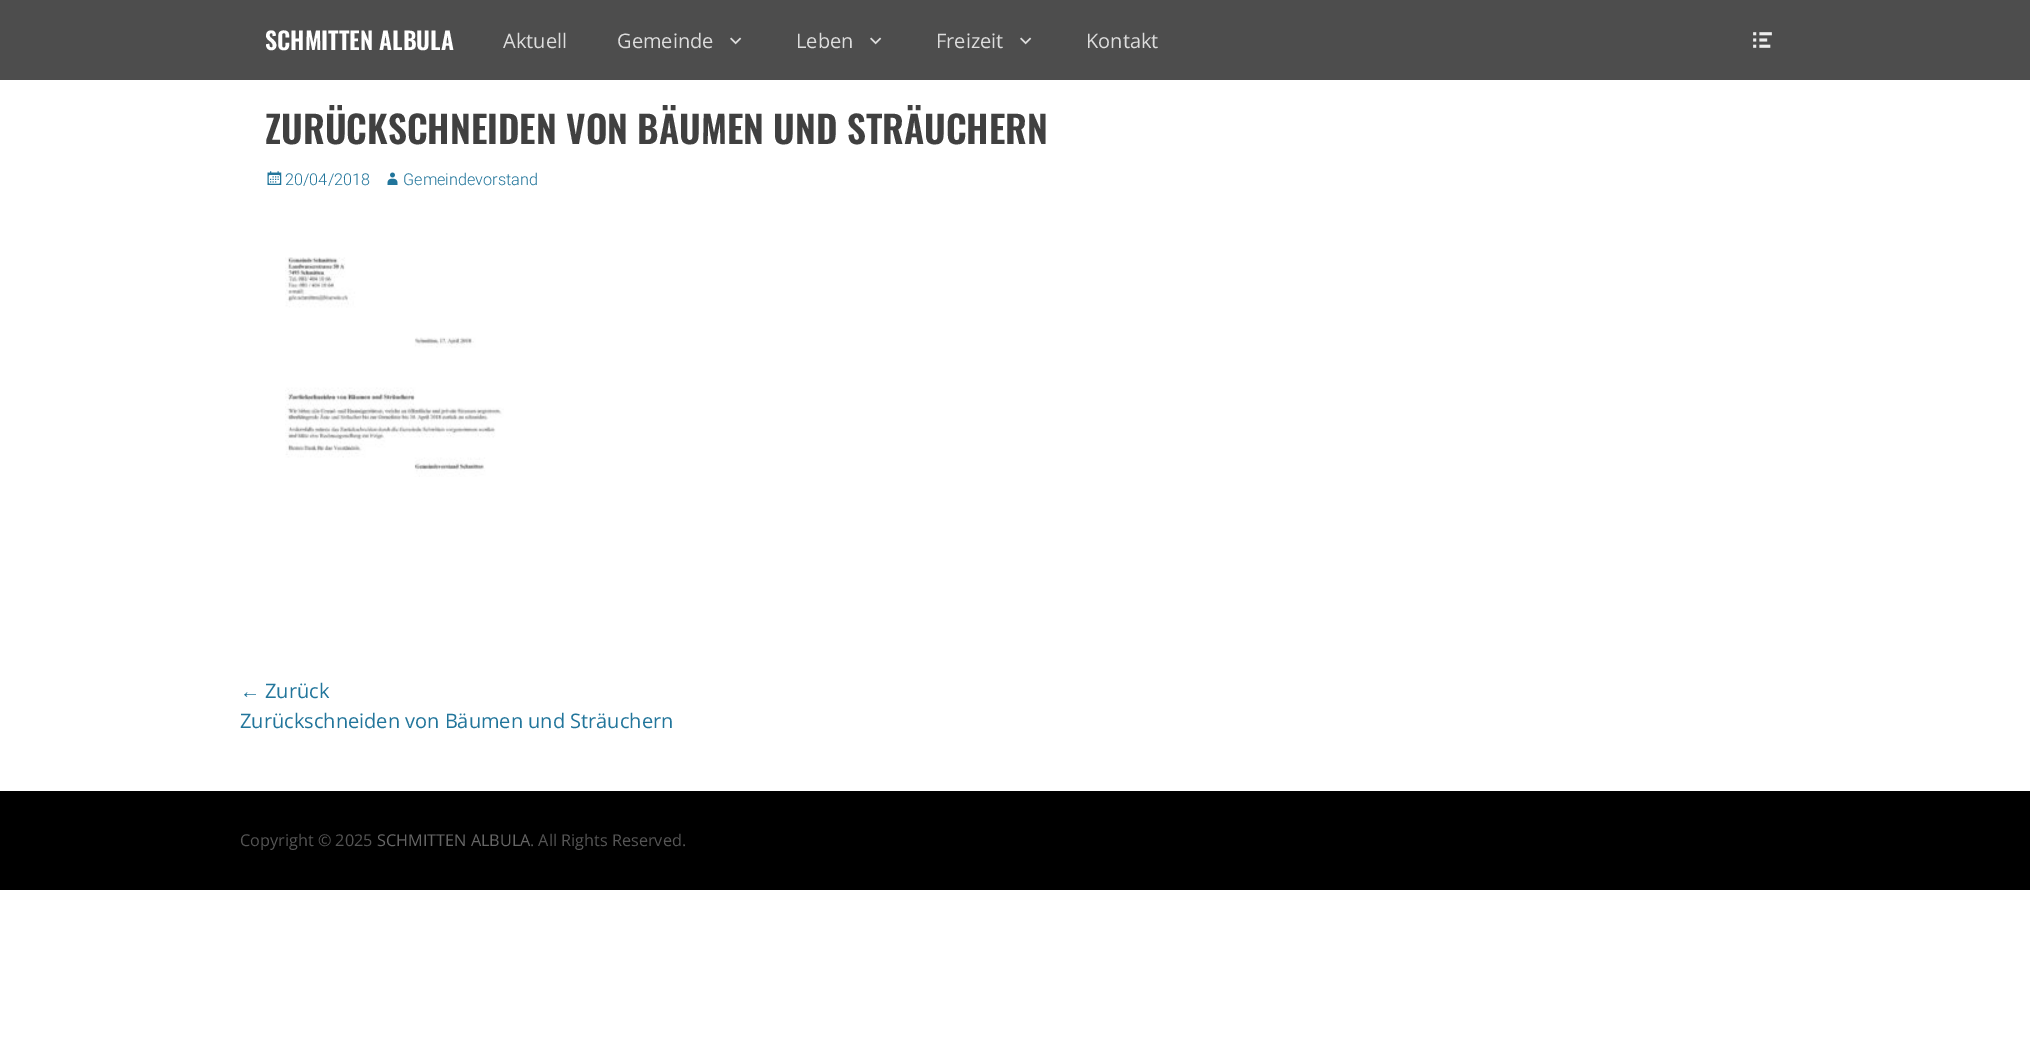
%!PS-Adobe-3.0
%%BoundingBox: 0 0 2030 1039
%%LanguageLevel: 3
%%Pages: 1
%%EndComments
%%BeginProlog
/fn { [ exch dup neg 0 0 3 -1 roll 0 0 ] selectfont } def
/tx { moveto show } def
/bx { rectfill } def
/im { 5 dict begin { /h /w /y /x /name } { exch def } forall
  gsave x y translate w h scale
  w h 8 [w 0 0 h 0 0] name (r) file false 3 colorimage grestore end } def
%%EndProlog
%%BeginSetup
<< /PageSize [2030 1039] >> setpagedevice
%%EndSetup
%%Page: 1 1
0 1039 translate 1 -1 scale
4 setmiterlimit
1 setgray
0 0 2030 1039 bx
0.302 setgray
0 0 2030 80 bx
/Oswald-SemiBold 24 fn
1 setgray
(SCHMITTEN ALBULA) 265 50 tx
/OpenSans-Regular 20 fn
0.867 setgray
(Aktuell) 503 48 tx
(Gemeinde) 617 48 tx
(image0.raw) 730 37 12 8 im
(Leben) 796 48 tx
(image0.raw) 870 37 12 8 im
(Freizeit) 936 48 tx
(image0.raw) 1020 37 12 8 im
(Kontakt) 1086 48 tx
(image1.raw) 1753 32 19 16 im
/Oswald-SemiBold 37.5 fn
0.251 setgray
(ZURÜCKSCHNEIDEN VON BÄUMEN UND STRÄUCHERN) 265 144 tx
(image2.raw) 267 171 15 14 im
/Roboto-Light 16.25 fn
0.129 0.459 0.608 setrgbcolor
(20/04/2018) 285 185 tx
(image3.raw) 387 172 11 13 im
(Gemeindevorstand) 403 185 tx
(image4.raw) 285 257 219 220 im
/LiberationSans-Regular 20 fn
(←) 240 698 tx
/OpenSans-Regular 20 fn
(Zurück) 265 698 tx
(Zurückschneiden von Bäumen und Sträuchern) 240 728 tx
0 setgray
0 791 2030 99 bx
/OpenSans-Regular 16.25 fn
0.333 setgray
(Copyright © 2025) 240 846 tx
0.4 setgray
(SCHMITTEN ALBULA) 377 846 tx
0.333 setgray
(. All Rights Reserved.) 530 846 tx
showpage
%%EOF
